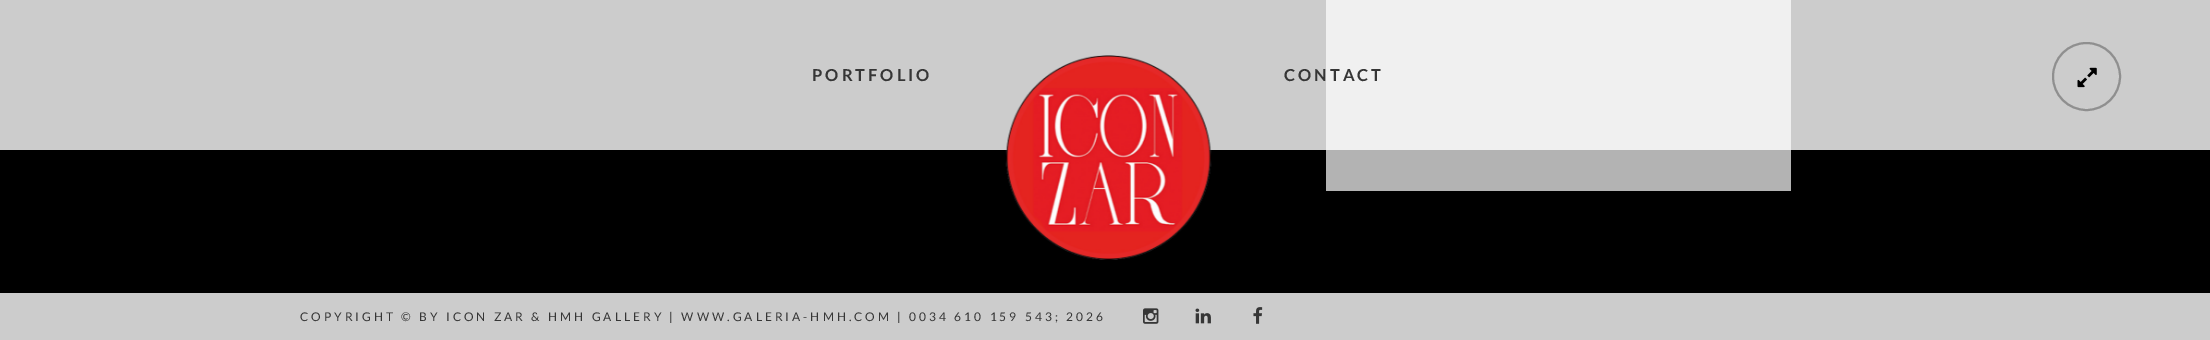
%!PS-Adobe-3.0
%%BoundingBox: 0 0 2210 340
%%LanguageLevel: 3
%%Pages: 1
%%EndComments
%%BeginProlog
/m { moveto } bind def
/S { stroke } bind def
/w { setlinewidth } bind def
/fn { [ exch dup neg 0 0 3 -1 roll 0 0 ] selectfont } def
/bx { rectfill } def
/al { dup .setfillconstantalpha .setstrokeconstantalpha } def
/ci { newpath 0 360 arc closepath } def
/im { 5 dict begin { /h /w /y /x /name } { exch def } forall
  gsave x y translate w h scale
  w h 8 [w 0 0 h 0 0] name (r) file false 3 colorimage grestore end } def
%%EndProlog
%%BeginSetup
<< /PageSize [2210 340] /PageUsesTransparency true >> setpagedevice
%%EndSetup
%%Page: 1 1
0 .pushpdf14devicefilter
0 340 translate 1 -1 scale
4 setmiterlimit
0 setgray
0 0 2210 340 bx
0.702 setgray
1326 0 465 191 bx
0.8 al
1 setgray
0 0 2210 150 bx
/Lato-Bold 16.5 fn
1 al
0.212 setgray
812 81 m 3 0 (PORTFOLIO) ashow
(image0.raw) 1005 55 207 205 im
1284 81 m 3 0 (CONTACT) ashow
0.561 setgray
2 w
2086.5 76.5 33.5 ci S
(image1.raw) 2077 67 20 21 im
0.8 setgray
0 293 2210 47 bx
/Lato-Regular 12 fn
0.212 setgray
300 321 m 3 0 (COPYRIGHT © BY ICON ZAR & HMH GALLERY | WWW.GALERIA-HMH.COM | 0034 610 159 543; 2026) ashow
(image2.raw) 1143 308 16 16 im
(image3.raw) 1195 308 16 16 im
(image4.raw) 1253 307 10 17 im
.poppdf14devicefilter showpage
%%EOF
